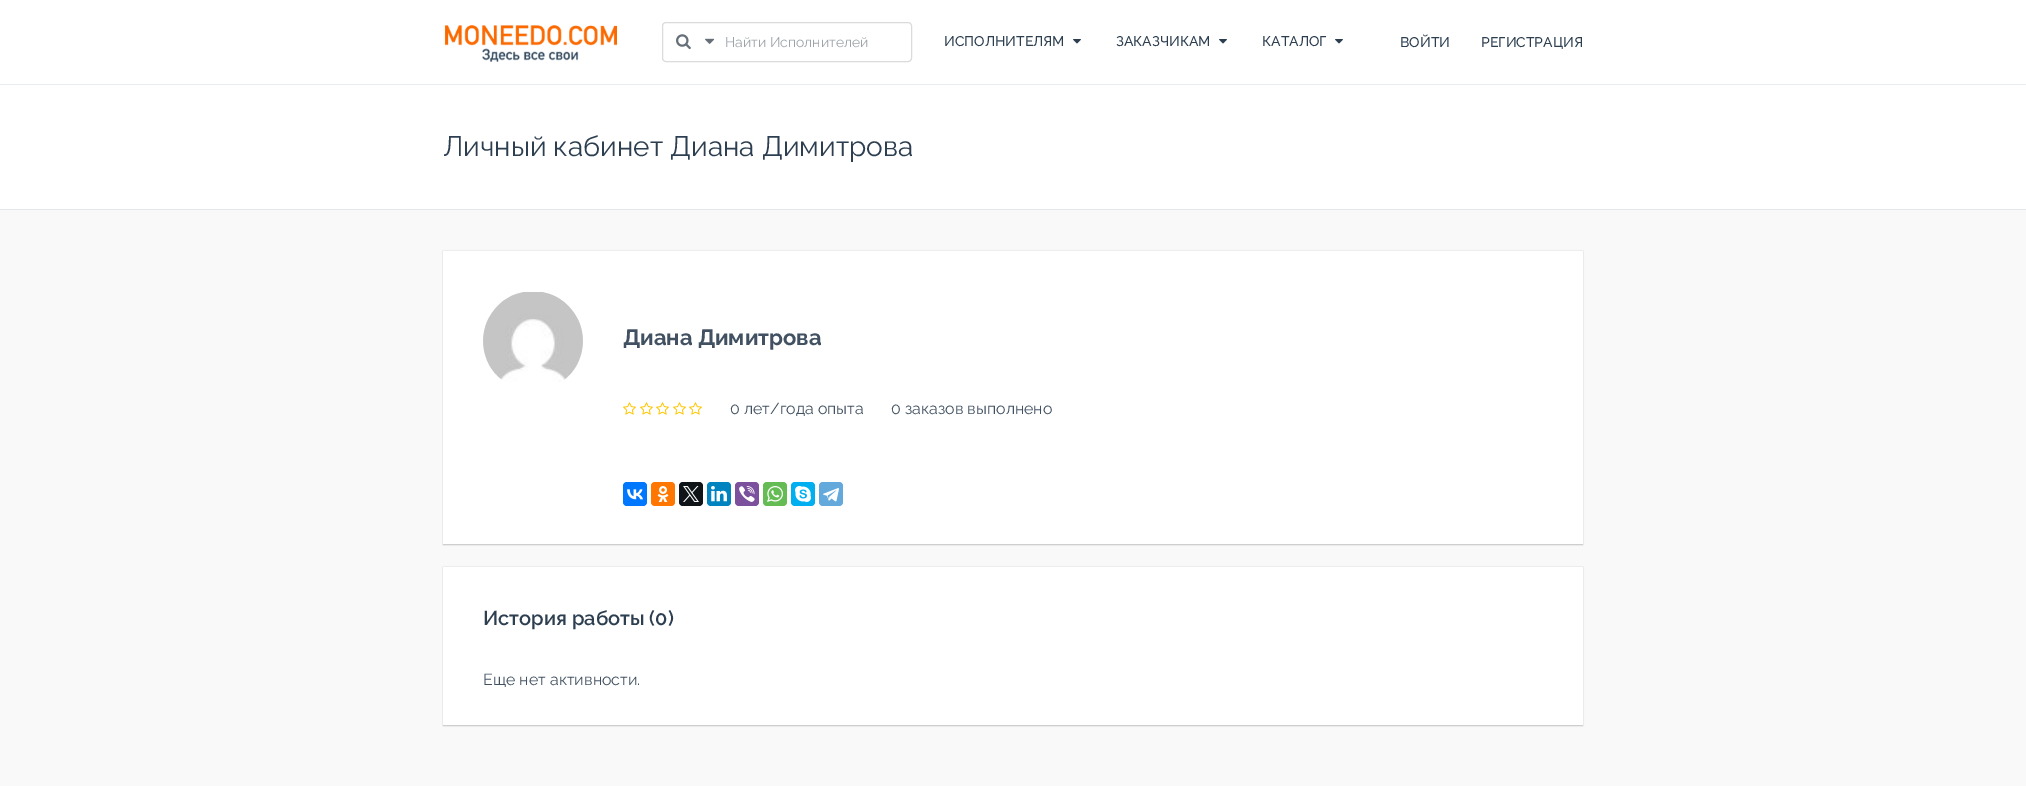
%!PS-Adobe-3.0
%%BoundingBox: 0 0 2026 786
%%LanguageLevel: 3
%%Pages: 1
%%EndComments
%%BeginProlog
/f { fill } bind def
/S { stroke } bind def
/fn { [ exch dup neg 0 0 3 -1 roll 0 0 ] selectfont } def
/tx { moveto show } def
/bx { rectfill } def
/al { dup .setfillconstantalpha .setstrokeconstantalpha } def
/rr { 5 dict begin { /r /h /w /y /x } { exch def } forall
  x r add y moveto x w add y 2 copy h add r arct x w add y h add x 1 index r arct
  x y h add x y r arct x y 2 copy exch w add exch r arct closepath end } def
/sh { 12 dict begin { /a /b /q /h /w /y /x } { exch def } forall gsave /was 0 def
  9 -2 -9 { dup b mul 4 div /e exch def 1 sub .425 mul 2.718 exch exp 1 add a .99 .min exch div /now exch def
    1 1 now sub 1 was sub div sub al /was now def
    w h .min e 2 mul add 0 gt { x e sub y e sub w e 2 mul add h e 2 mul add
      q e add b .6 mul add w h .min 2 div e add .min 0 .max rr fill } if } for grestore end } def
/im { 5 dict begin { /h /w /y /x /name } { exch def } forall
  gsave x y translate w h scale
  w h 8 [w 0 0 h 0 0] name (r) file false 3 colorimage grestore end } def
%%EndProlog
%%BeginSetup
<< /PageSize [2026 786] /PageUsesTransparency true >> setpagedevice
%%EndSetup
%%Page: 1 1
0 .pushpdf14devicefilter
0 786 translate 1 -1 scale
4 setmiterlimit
0.976 setgray
0 0 2026 786 bx
1 setgray
0 0 2026 84 bx
0.914 0.925 0.937 setrgbcolor
0 84 2026 1 bx
(image0.raw) 444 25 173 37 im
0.859 setgray
662.5 22.5 249 39 3.5 rr S
(image1.raw) 676 34 15 16 im
(image2.raw) 705 38 10 6 im
/Raleway-Regular 14 fn
0.616 0.643 0.663 setrgbcolor
(Найти Исполнителей) 725 47 tx
/Raleway-Medium 14 fn
0.173 0.243 0.314 setrgbcolor
(ИСПОЛНИТЕЛЯМ) 944 46 tx
(image3.raw) 1073 39 8 5 im
(ЗАКАЗЧИКАМ) 1116 46 tx
(image3.raw) 1219 39 8 5 im
(КАТАЛОГ) 1262 46 tx
(image3.raw) 1335 39 8 5 im
(ВОЙТИ) 1400 47 tx
(РЕГИСТРАЦИЯ) 1481 47 tx
1 setgray
0 85 2026 124 bx
0.894 0.906 0.918 setrgbcolor
0 209 2026 1 bx
/Raleway-Regular 28 fn
0.173 0.243 0.314 setrgbcolor
(Личный кабинет Диана Димитрова) 443 156 tx
0.725 0.722 0.722 setrgbcolor
443 251 1140 294 0 0.5 0.75 sh
1 setgray
443 251 1140 293 bx
0.929 setgray
443 250 1140 1 bx
(image4.raw) 483 292 100 90 im
/Raleway-Bold 22 fn
0.255 0.318 0.38 setrgbcolor
(Диана Димитрова) 623 345 tx
(image5.raw) 623 402 13 13 im
(image5.raw) 640 402 13 13 im
(image5.raw) 656 402 13 13 im
(image5.raw) 673 402 13 13 im
(image5.raw) 689 402 13 13 im
/Raleway-Regular 16 fn
(0 лет/года опыта) 730 414 tx
(0 заказов выполнено) 891 414 tx
0 0.467 1 setrgbcolor
623 482 24 24 4 rr f
(image6.raw) 627 489 16 11 im
1 0.467 0 setrgbcolor
651 482 24 24 4 rr f
(image7.raw) 657 486 12 16 im
0.059 0.078 0.098 setrgbcolor
679 482 24 24 4 rr f
(image8.raw) 683 486 16 16 im
0 0.514 0.745 setrgbcolor
707 482 24 24 4 rr f
(image9.raw) 711 486 16 16 im
0.482 0.318 0.616 setrgbcolor
735 482 24 24 4 rr f
(image10.raw) 739 486 16 16 im
0.396 0.737 0.329 setrgbcolor
763 482 24 24 4 rr f
(image11.raw) 767 486 16 16 im
0 0.686 0.941 setrgbcolor
791 482 24 24 4 rr f
(image12.raw) 795 486 16 16 im
0.392 0.663 0.863 setrgbcolor
819 482 24 24 4 rr f
(image13.raw) 823 488 16 14 im
0.725 0.722 0.722 setrgbcolor
443 567 1140 159 0 0.5 0.75 sh
1 setgray
443 567 1140 158 bx
0.929 setgray
443 566 1140 1 bx
/Raleway-SemiBold 20 fn
0.173 0.243 0.314 setrgbcolor
(История работы \(0\)) 483 625 tx
/Raleway-Regular 16 fn
0.255 0.318 0.38 setrgbcolor
(Еще нет активности.) 483 685 tx
.poppdf14devicefilter showpage
%%EOF
